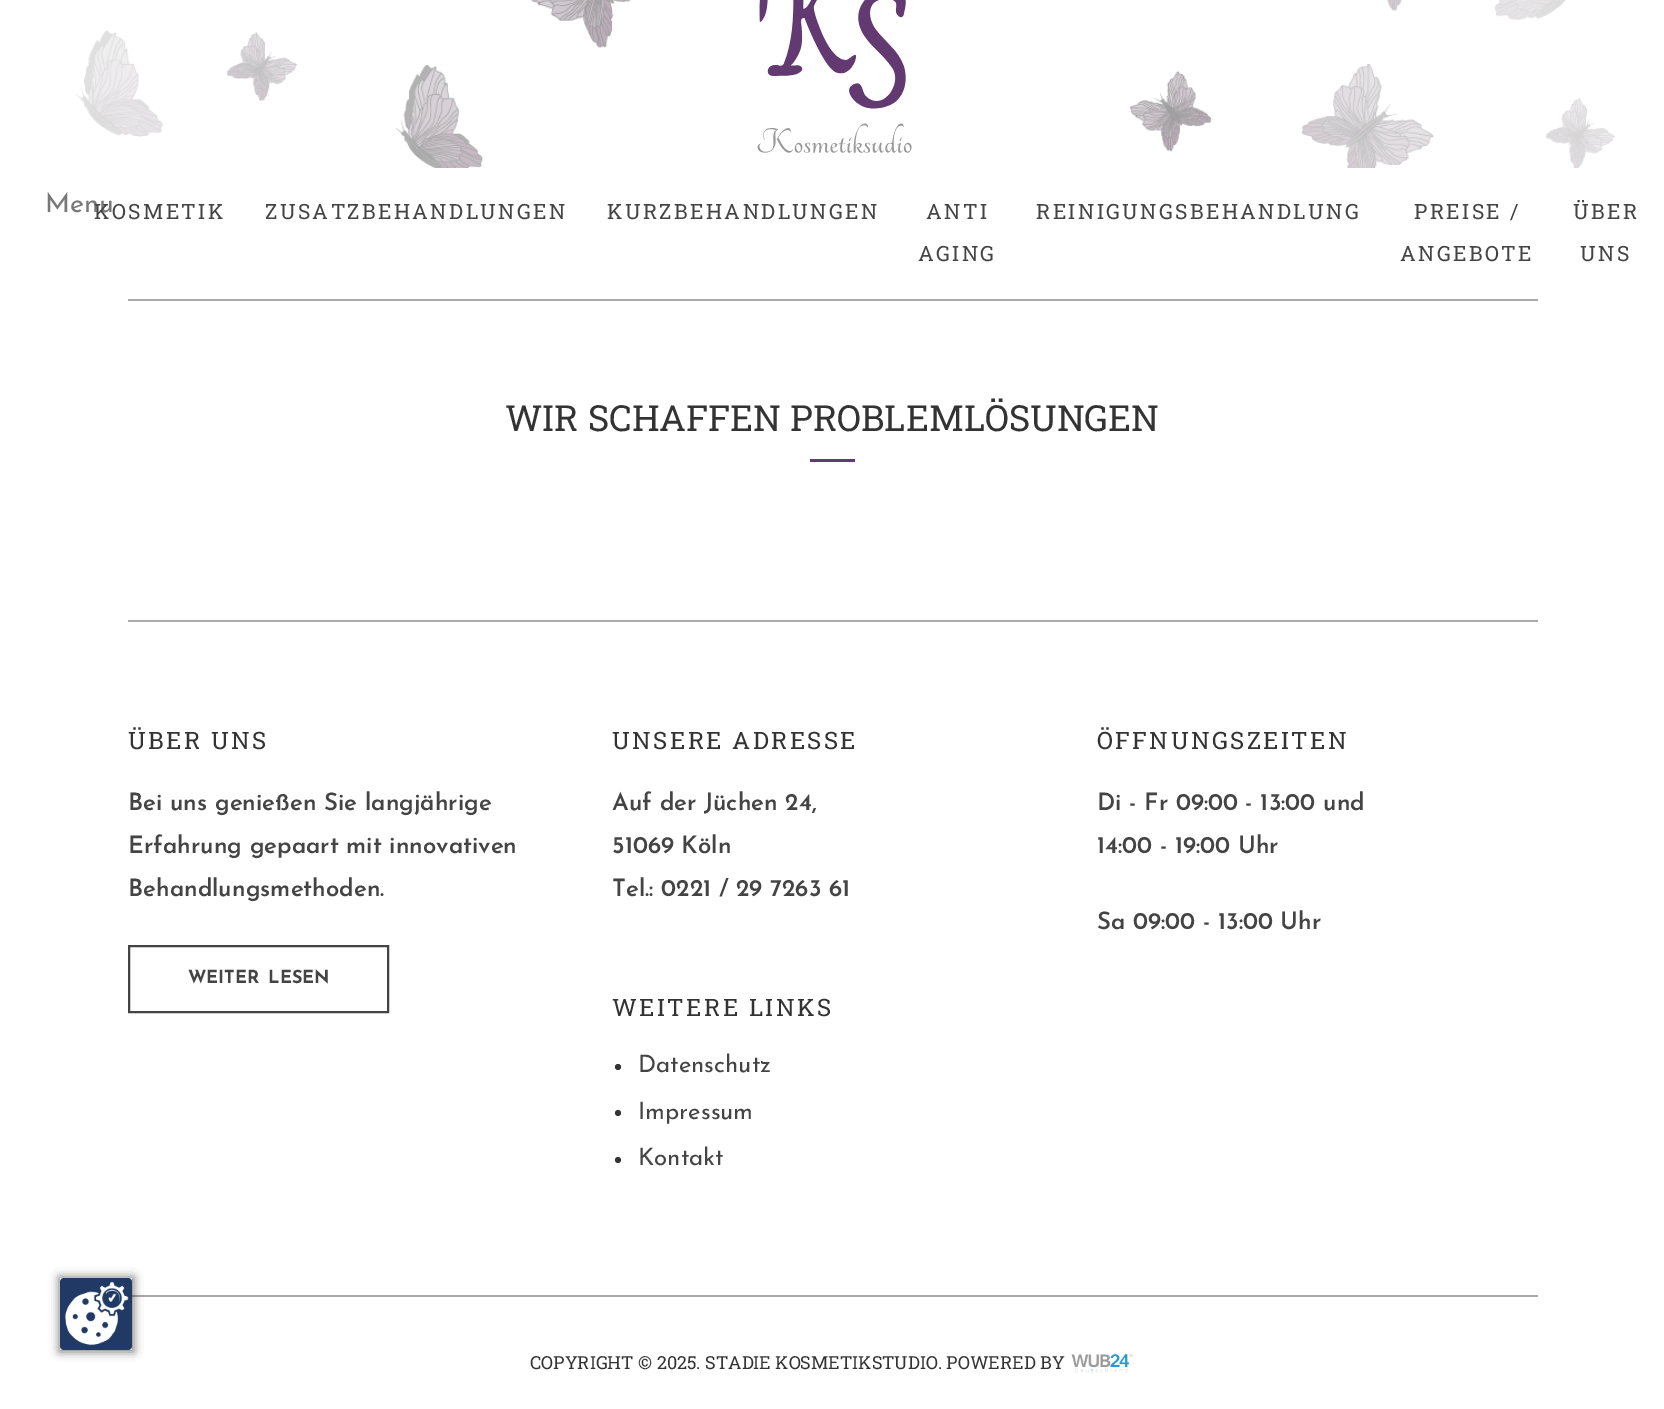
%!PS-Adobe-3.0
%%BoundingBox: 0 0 1664 1409
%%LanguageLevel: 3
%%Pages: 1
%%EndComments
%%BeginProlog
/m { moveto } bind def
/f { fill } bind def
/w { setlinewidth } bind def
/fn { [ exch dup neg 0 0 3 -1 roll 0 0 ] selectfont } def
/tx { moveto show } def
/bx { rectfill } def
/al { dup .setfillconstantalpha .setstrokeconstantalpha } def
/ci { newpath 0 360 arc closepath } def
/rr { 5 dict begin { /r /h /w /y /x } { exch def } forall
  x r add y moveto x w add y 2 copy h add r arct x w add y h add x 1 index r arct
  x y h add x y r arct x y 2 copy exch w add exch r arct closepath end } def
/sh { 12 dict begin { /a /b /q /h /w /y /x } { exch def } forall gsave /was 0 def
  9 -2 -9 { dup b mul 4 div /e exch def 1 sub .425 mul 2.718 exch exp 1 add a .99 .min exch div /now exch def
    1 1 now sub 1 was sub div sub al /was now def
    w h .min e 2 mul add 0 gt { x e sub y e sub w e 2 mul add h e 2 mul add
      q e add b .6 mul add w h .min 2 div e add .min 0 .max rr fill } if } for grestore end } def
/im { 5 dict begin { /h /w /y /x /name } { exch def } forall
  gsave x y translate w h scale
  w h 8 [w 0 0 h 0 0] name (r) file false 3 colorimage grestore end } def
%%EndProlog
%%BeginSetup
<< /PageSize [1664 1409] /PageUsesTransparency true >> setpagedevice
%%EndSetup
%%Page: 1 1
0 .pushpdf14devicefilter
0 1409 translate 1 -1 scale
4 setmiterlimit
1 setgray
0 0 1664 1409 bx
(image0.raw) 75 0 1540 168 im
(image1.raw) 757 0 155 153 im
/JosefinSans-Regular 27 fn
0.467 setgray
(Menu) 45 212 tx
/RobotoSlab-Regular 21 fn
0.267 setgray
94 219 m 2.4 0 (KOSMETIK) ashow
265 219 m 2.4 0 (ZUSATZBEHANDLUNGEN) ashow
607 219 m 2.4 0 (KURZBEHANDLUNGEN) ashow
926 219 m 2.4 0 (ANTI) ashow
918 261 m 2.4 0 (AGING) ashow
1036 219 m 2.4 0 (REINIGUNGSBEHANDLUNG) ashow
1414 219 m 2.4 0 (PREISE /) ashow
1400 261 m 2.4 0 (ANGEBOTE) ashow
1573 219 m 2.4 0 (ÜBER) ashow
1580 261 m 2.4 0 (UNS) ashow
0.667 setgray
128 299 1410 2 bx
/RobotoSlab-Regular 36 fn
0.2 setgray
(WIR SCHAFFEN PROBLEMLÖSUNGEN) 505 431 tx
0.388 0.224 0.443 setrgbcolor
810 459 45 3 bx
0.667 setgray
128 1295 1410 2 bx
0 setgray
59 1277 75 75 0 4.5 0.5 sh
(image2.raw) 60 1278 72 72 im
0.667 setgray
128 620 1410 2 bx
/RobotoSlab-Regular 24 fn
0.2 setgray
128 749 m 2.4 0 (ÜBER UNS) ashow
/JosefinSans-SemiBold 24 fn
0.267 setgray
(Bei uns genießen Sie langjährige) 128 810 tx
(Erfahrung gepaart mit innovativen) 128 853 tx
(Behandlungsmethoden.) 128 896 tx
2 w
129 946 259 66 rectstroke
/JosefinSans-Bold 18 fn
188 983 m 3 0 32 (WEITER LESEN) widthshow
/RobotoSlab-Regular 24 fn
0.2 setgray
612 749 m 2.4 0 (UNSERE ADRESSE) ashow
/JosefinSans-SemiBold 24 fn
0.267 setgray
(Auf der Jüchen 24,) 612 810 tx
(51069 Köln) 612 853 tx
(Tel.: 0221 / 29 7263 61) 612 896 tx
/RobotoSlab-Regular 24 fn
0.2 setgray
1097 749 m 2.4 0 (ÖFFNUNGSZEITEN) ashow
/JosefinSans-SemiBold 24 fn
0.267 setgray
(Di - Fr 09:00 - 13:00 und) 1097 810 tx
(14:00 - 19:00 Uhr) 1097 853 tx
(Sa 09:00 - 13:00 Uhr) 1097 929 tx
/RobotoSlab-Regular 24 fn
0.2 setgray
612 1016 m 2.4 0 (WEITERE LINKS) ashow
618 1067 3 ci f
/JosefinSans-Regular 24 fn
0.267 setgray
(Datenschutz) 638 1072 tx
0.2 setgray
618 1113 3 ci f
0.267 setgray
(Impressum) 638 1119 tx
0.2 setgray
618 1160 3 ci f
0.267 setgray
(Kontakt) 638 1165 tx
/RobotoSlab-Regular 18 fn
0.2 setgray
(COPYRIGHT © 2025. STADIE KOSMETIKSTUDIO. POWERED BY) 530 1369 tx
(image3.raw) 1071 1353 62 20 im
.poppdf14devicefilter showpage
%%EOF
